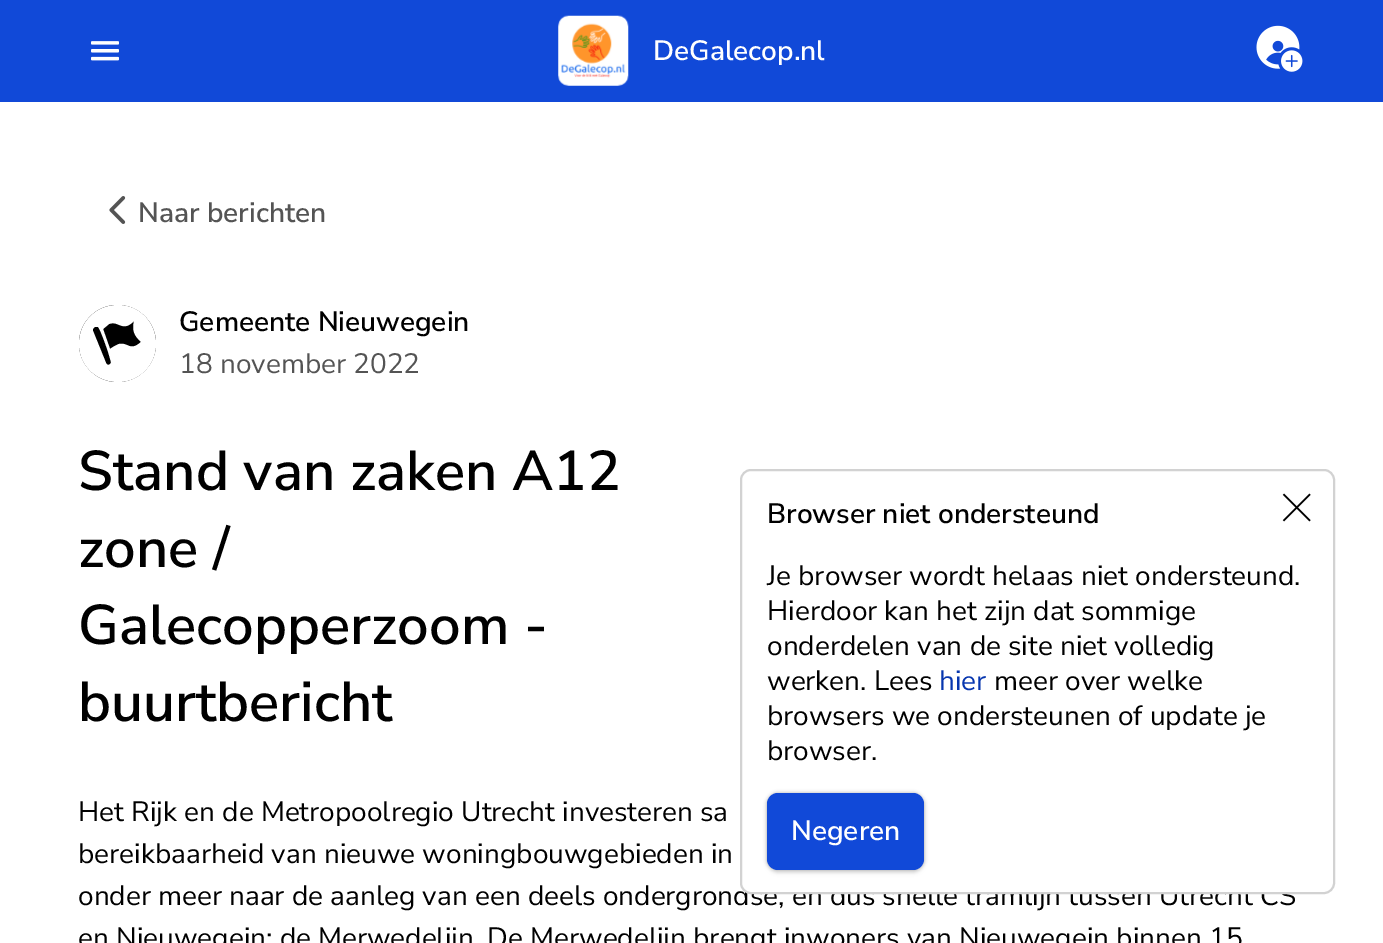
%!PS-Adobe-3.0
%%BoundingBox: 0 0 1383 943
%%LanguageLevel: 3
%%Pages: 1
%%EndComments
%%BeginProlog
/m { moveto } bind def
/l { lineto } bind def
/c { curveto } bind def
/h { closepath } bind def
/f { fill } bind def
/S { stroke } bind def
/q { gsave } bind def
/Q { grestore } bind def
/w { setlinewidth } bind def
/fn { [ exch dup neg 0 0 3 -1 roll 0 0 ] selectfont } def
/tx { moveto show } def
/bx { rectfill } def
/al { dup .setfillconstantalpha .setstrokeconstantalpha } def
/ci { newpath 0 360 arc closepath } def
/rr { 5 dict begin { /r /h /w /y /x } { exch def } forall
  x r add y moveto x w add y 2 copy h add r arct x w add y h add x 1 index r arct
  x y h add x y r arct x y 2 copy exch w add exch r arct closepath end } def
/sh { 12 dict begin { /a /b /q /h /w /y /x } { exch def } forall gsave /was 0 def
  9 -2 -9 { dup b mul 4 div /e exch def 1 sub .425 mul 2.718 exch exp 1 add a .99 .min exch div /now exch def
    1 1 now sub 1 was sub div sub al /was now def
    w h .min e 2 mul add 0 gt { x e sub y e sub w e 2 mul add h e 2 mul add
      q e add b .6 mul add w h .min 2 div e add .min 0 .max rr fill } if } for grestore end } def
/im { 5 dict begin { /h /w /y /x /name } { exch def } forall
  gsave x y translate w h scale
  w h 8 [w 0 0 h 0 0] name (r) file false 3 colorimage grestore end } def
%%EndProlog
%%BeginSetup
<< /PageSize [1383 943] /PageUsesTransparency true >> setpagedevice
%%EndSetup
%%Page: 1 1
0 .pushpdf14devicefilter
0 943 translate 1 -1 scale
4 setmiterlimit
1 setgray
0 0 1383 943 bx
0.067 0.286 0.847 setrgbcolor
0 0 1383 102 bx
(image0.raw) 91 41 28 20 im
(image1.raw) 558 15 71 71 im
/NunitoSans-SemiBold 28 fn
1 setgray
(DeGalecop.nl) 653 60 tx
(image2.raw) 1256 25 47 47 im
(image3.raw) 109 196 17 28 im
0.329 setgray
(Naar berichten) 138 222 tx
0 setgray
117.5 343.5 38.5 ci f
1 setgray
118 305 m 96 305 79 322 79 344 c 79 365 96 382 118 382 c 139 382 156 365 156 344 c 156 322 139 305 118 305 c h 103 329 m 110 349 l 113 347 116 345 119 344 c 128 342 130 352 141 342 c 134 335 132 331 134 321 c 122 333 119 320 109 324 c h 93 331 m 106 363 l 107 366 111 365 111 362 c 109 355 l 108 351 100 328 98 327 c 95 326 92 328 93 331 c h eofill
0 setgray
(Gemeente Nieuwegein) 179 331 tx
/NunitoSans-Regular 28 fn
0.329 setgray
(18 november 2022) 179 373 tx
/NunitoSans-SemiBold 56 fn
0 setgray
(Stand van zaken A12) 78 490 tx
(zone /) 78 567 tx
(Galecopperzoom -) 78 644 tx
(buurtbericht) 78 721 tx
/NunitoSans-Regular 28 fn
(Het Rijk en de Metropoolregio Utrecht investeren sa) 78 821 tx
(bereikbaarheid van nieuwe woningbouwgebieden in) 78 863 tx
(onder meer naar de aanleg van een deels ondergrondse, en dus snelle tramlijn tussen Utrecht CS) 78 905 tx
(en Nieuwegein; de Merwedelijn. De Merwedelijn brengt inwoners van Nieuwegein binnen 15) 78 947 tx
1 setgray
741 470 593 423 10 rr q f Q
0.824 setgray
2 w
S
(image4.raw) 1282 493 29 29 im
/NunitoSans-SemiBold 28 fn
0 setgray
(Browser niet ondersteund) 767 523 tx
/NunitoSans-Regular 28 fn
(Je browser wordt helaas niet ondersteund.) 767 585 tx
(Hierdoor kan het zijn dat sommige) 767 620 tx
(onderdelen van de site niet volledig) 767 655 tx
(werken. Lees) 767 690 tx
0.027 0.212 0.686 setrgbcolor
(hier) 939 690 tx
0 setgray
(meer over welke) 994 690 tx
(browsers we ondersteunen of update je) 767 725 tx
(browser.) 767 760 tx
767 796 157 77 11 2 0.1 sh
767 793 157 77 11 2 0.3 sh
0.067 0.286 0.847 setrgbcolor
767 793 157 77 11 rr f
/NunitoSans-SemiBold 28 fn
1 setgray
(Negeren) 791 840 tx
.poppdf14devicefilter showpage
%%EOF
